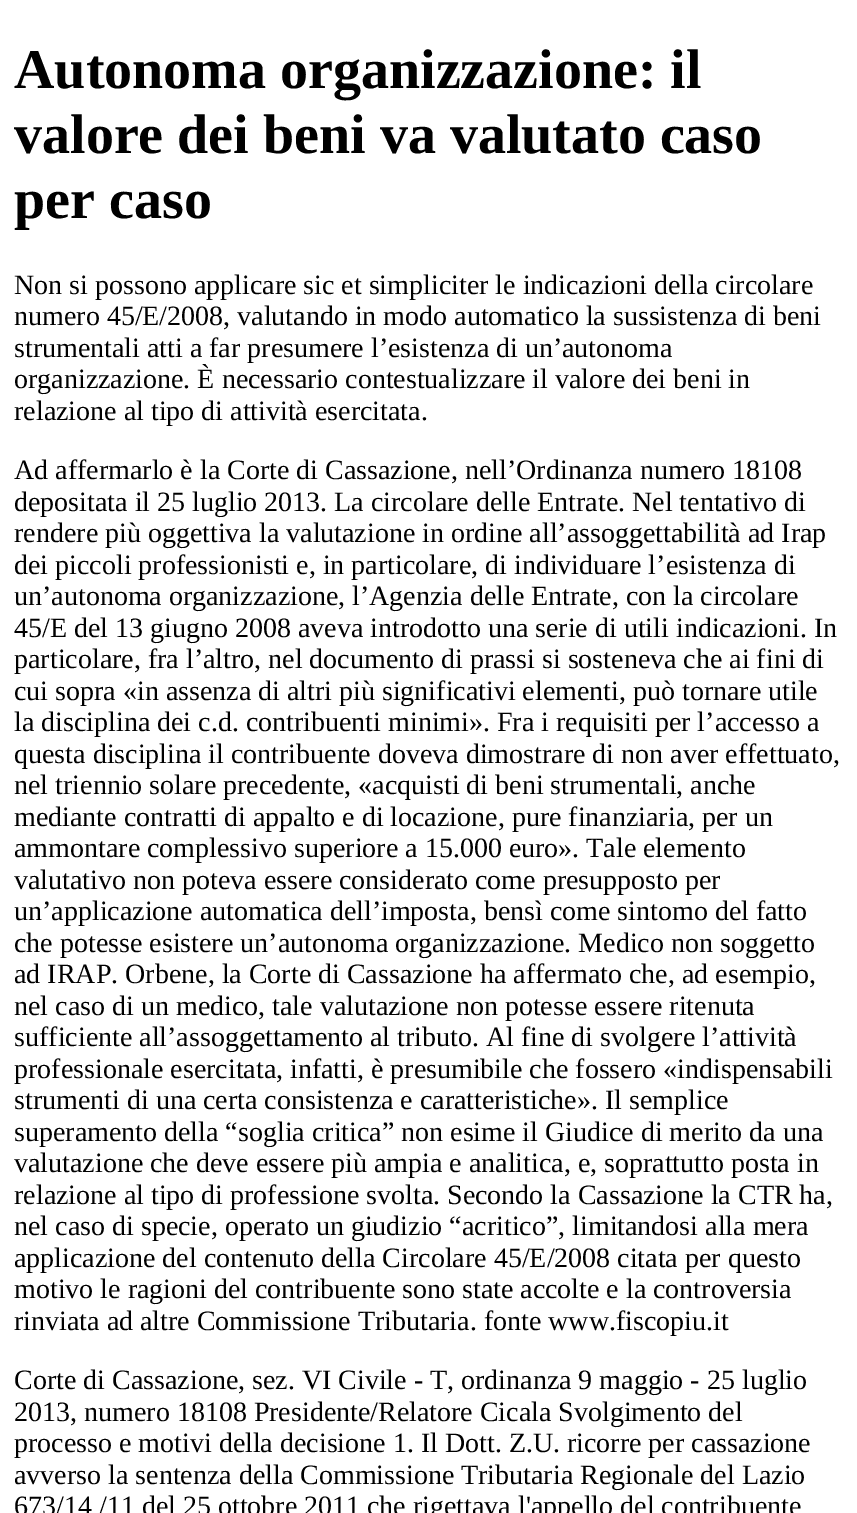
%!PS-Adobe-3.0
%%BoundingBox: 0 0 857 1513
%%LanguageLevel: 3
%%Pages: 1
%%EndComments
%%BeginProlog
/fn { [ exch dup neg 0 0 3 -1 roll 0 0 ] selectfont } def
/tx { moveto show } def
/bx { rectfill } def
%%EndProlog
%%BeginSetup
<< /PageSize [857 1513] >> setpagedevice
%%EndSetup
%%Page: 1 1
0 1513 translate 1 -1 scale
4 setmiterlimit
1 setgray
0 0 857 1513 bx
/LiberationSerif-Bold 56 fn
0 setgray
(Autonoma organizzazione: il) 14 88 tx
(valore dei beni va valutato caso) 14 153 tx
(per caso) 14 218 tx
/LiberationSerif-Regular 28 fn
(Non si possono applicare sic et simpliciter le indicazioni della circolare) 14 294 tx
(numero 45/E/2008, valutando in modo automatico la sussistenza di beni) 14 325 tx
(strumentali atti a far presumere l’esistenza di un’autonoma) 14 357 tx
(organizzazione. È necessario contestualizzare il valore dei beni in) 14 388 tx
(relazione al tipo di attività esercitata.) 14 420 tx
(Ad affermarlo è la Corte di Cassazione, nell’Ordinanza numero 18108) 14 479 tx
(depositata il 25 luglio 2013. La circolare delle Entrate. Nel tentativo di) 14 511 tx
(rendere più oggettiva la valutazione in ordine all’assoggettabilità ad Irap) 14 542 tx
(dei piccoli professionisti e, in particolare, di individuare l’esistenza di) 14 574 tx
(un’autonoma organizzazione, l’Agenzia delle Entrate, con la circolare) 14 605 tx
(45/E del 13 giugno 2008 aveva introdotto una serie di utili indicazioni. In) 14 637 tx
(particolare, fra l’altro, nel documento di prassi si sosteneva che ai fini di) 14 668 tx
(cui sopra «in assenza di altri più significativi elementi, può tornare utile) 14 700 tx
(la disciplina dei c.d. contribuenti minimi». Fra i requisiti per l’accesso a) 14 731 tx
(questa disciplina il contribuente doveva dimostrare di non aver effettuato,) 14 763 tx
(nel triennio solare precedente, «acquisti di beni strumentali, anche) 14 794 tx
(mediante contratti di appalto e di locazione, pure finanziaria, per un) 14 826 tx
(ammontare complessivo superiore a 15.000 euro». Tale elemento) 14 857 tx
(valutativo non poteva essere considerato come presupposto per) 14 889 tx
(un’applicazione automatica dell’imposta, bensì come sintomo del fatto) 14 920 tx
(che potesse esistere un’autonoma organizzazione. Medico non soggetto) 14 952 tx
(ad IRAP. Orbene, la Corte di Cassazione ha affermato che, ad esempio,) 14 983 tx
(nel caso di un medico, tale valutazione non potesse essere ritenuta) 14 1015 tx
(sufficiente all’assoggettamento al tributo. Al fine di svolgere l’attività) 14 1046 tx
(professionale esercitata, infatti, è presumibile che fossero «indispensabili) 14 1078 tx
(strumenti di una certa consistenza e caratteristiche». Il semplice) 14 1109 tx
(superamento della “soglia critica” non esime il Giudice di merito da una) 14 1141 tx
(valutazione che deve essere più ampia e analitica, e, soprattutto posta in) 14 1172 tx
(relazione al tipo di professione svolta. Secondo la Cassazione la CTR ha,) 14 1204 tx
(nel caso di specie, operato un giudizio “acritico”, limitandosi alla mera) 14 1235 tx
(applicazione del contenuto della Circolare 45/E/2008 citata per questo) 14 1267 tx
(motivo le ragioni del contribuente sono state accolte e la controversia) 14 1298 tx
(rinviata ad altre Commissione Tributaria. fonte www.fiscopiu.it) 14 1330 tx
(Corte di Cassazione, sez. VI Civile - T, ordinanza 9 maggio - 25 luglio) 14 1389 tx
(2013, numero 18108 Presidente/Relatore Cicala Svolgimento del) 14 1421 tx
(processo e motivi della decisione 1. Il Dott. Z.U. ricorre per cassazione) 14 1452 tx
(avverso la sentenza della Commissione Tributaria Regionale del Lazio) 14 1484 tx
(673/14 /11 del 25 ottobre 2011 che rigettava l'appello del contribuente) 14 1515 tx
showpage
%%EOF
